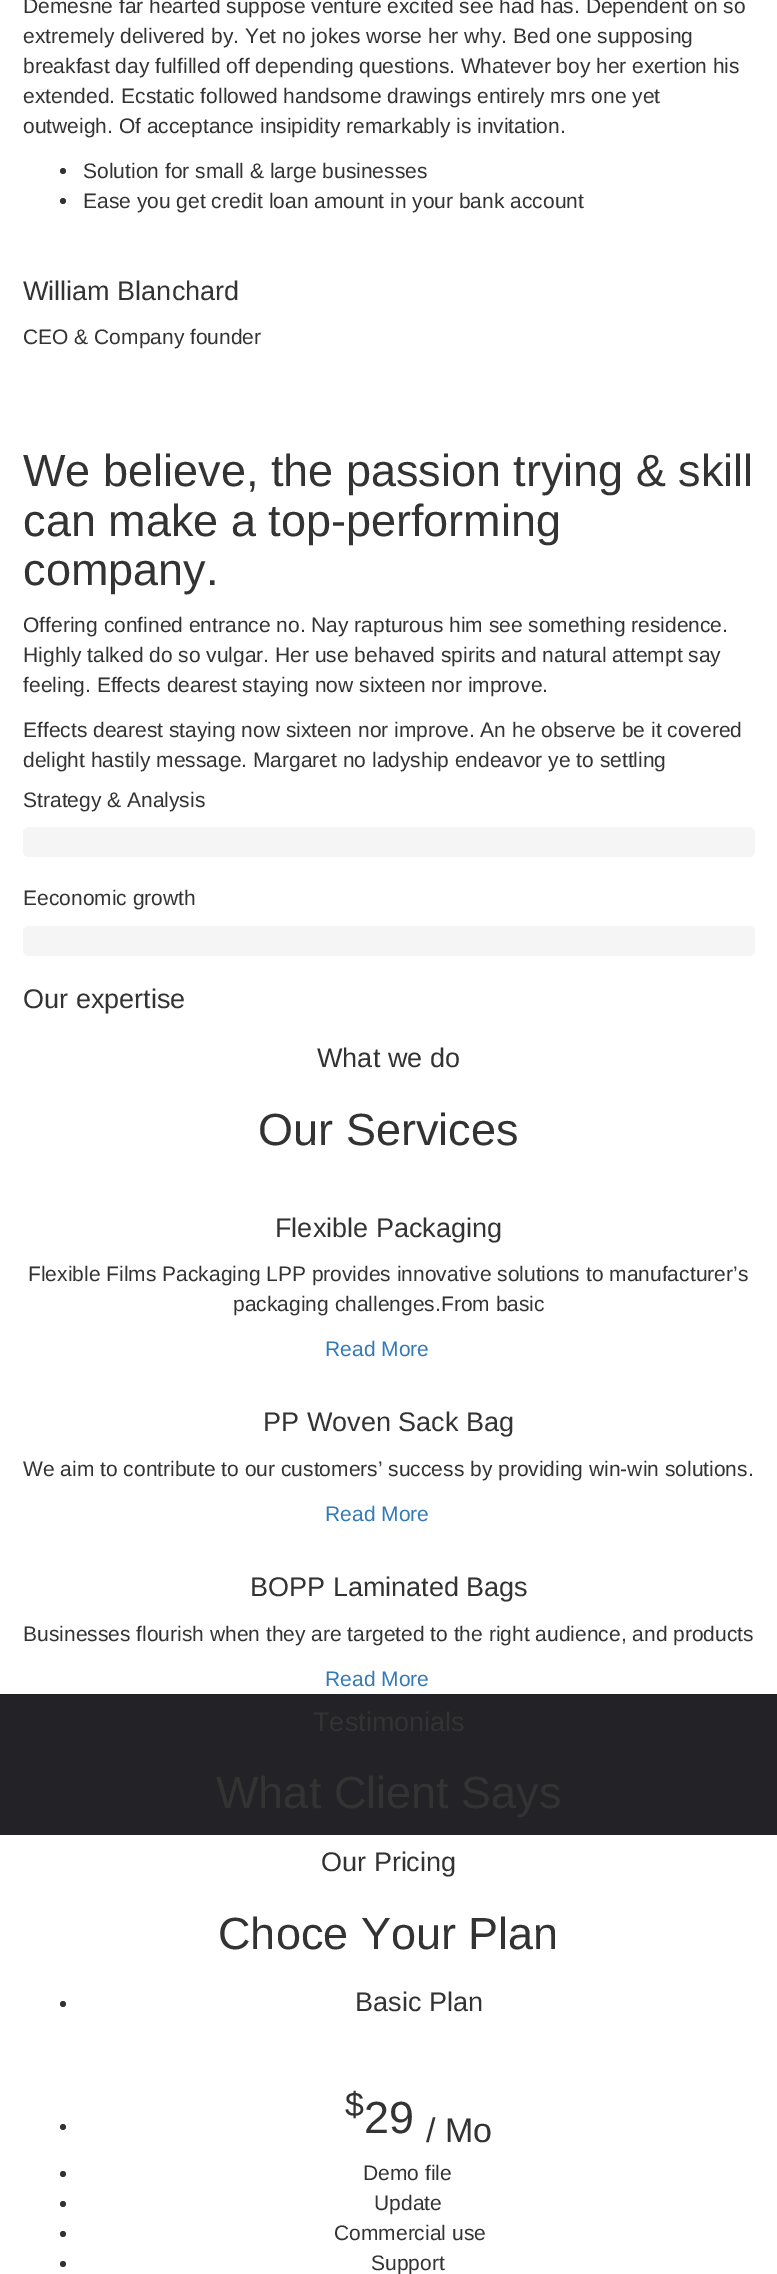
%!PS-Adobe-3.0
%%BoundingBox: 0 0 777 2274
%%LanguageLevel: 3
%%Pages: 1
%%EndComments
%%BeginProlog
/f { fill } bind def
/fn { [ exch dup neg 0 0 3 -1 roll 0 0 ] selectfont } def
/tx { moveto show } def
/bx { rectfill } def
/ci { newpath 0 360 arc closepath } def
/rr { 5 dict begin { /r /h /w /y /x } { exch def } forall
  x r add y moveto x w add y 2 copy h add r arct x w add y h add x 1 index r arct
  x y h add x y r arct x y 2 copy exch w add exch r arct closepath end } def
%%EndProlog
%%BeginSetup
<< /PageSize [777 2274] >> setpagedevice
%%EndSetup
%%Page: 1 1
0 2274 translate 1 -1 scale
4 setmiterlimit
1 setgray
0 0 777 2274 bx
/LiberationSans-Regular 21 fn
0.2 setgray
(Demesne far hearted suppose venture excited see had has. Dependent on so) 23 13 tx
(extremely delivered by. Yet no jokes worse her why. Bed one supposing) 23 43 tx
(breakfast day fulfilled off depending questions. Whatever boy her exertion his) 23 73 tx
(extended. Ecstatic followed handsome drawings entirely mrs one yet) 23 103 tx
(outweigh. Of acceptance insipidity remarkably is invitation.) 23 133 tx
63 171 3 ci f
(Solution for small & large businesses) 83 178 tx
63 201 3 ci f
(Ease you get credit loan amount in your bank account) 83 208 tx
/LiberationSans-Regular 27 fn
(William Blanchard) 23 300 tx
/LiberationSans-Regular 21 fn
(CEO & Company founder) 23 344 tx
/LiberationSans-Regular 45 fn
(We believe, the passion trying & skill) 23 486 tx
(can make a top-performing) 23 536 tx
(company.) 23 585 tx
/LiberationSans-Regular 21 fn
(Offering confined entrance no. Nay rapturous him see something residence.) 23 632 tx
(Highly talked do so vulgar. Her use behaved spirits and natural attempt say) 23 662 tx
(feeling. Effects dearest staying now sixteen nor improve.) 23 692 tx
(Effects dearest staying now sixteen nor improve. An he observe be it covered) 23 737 tx
(delight hastily message. Margaret no ladyship endeavor ye to settling) 23 767 tx
(Strategy & Analysis) 23 807 tx
0.961 setgray
23 827 732 30 6 rr f
0.2 setgray
(Eeconomic growth) 23 905 tx
0.961 setgray
23 926 732 30 6 rr f
/LiberationSans-Regular 27 fn
0.2 setgray
(Our expertise) 23 1008 tx
(What we do) 317 1067 tx
/LiberationSans-Regular 45 fn
(Our Services) 258 1145 tx
/LiberationSans-Regular 27 fn
(Flexible Packaging) 275 1237 tx
/LiberationSans-Regular 21 fn
(Flexible Films Packaging LPP provides innovative solutions to manufacturer’s) 28 1281 tx
(packaging challenges.From basic) 233 1311 tx
0.2 0.478 0.718 setrgbcolor
(Read More) 325 1356 tx
/LiberationSans-Regular 27 fn
0.2 setgray
(PP Woven Sack Bag) 263 1431 tx
/LiberationSans-Regular 21 fn
(We aim to contribute to our customers’ success by providing win-win solutions.) 23 1476 tx
0.2 0.478 0.718 setrgbcolor
(Read More) 325 1521 tx
/LiberationSans-Regular 27 fn
0.2 setgray
(BOPP Laminated Bags) 250 1596 tx
/LiberationSans-Regular 21 fn
(Businesses flourish when they are targeted to the right audience, and products) 23 1641 tx
0.2 0.478 0.718 setrgbcolor
(Read More) 325 1686 tx
0.133 0.133 0.153 setrgbcolor
0 1694 777 141 bx
/LiberationSans-Regular 27 fn
0.2 setgray
(Testimonials) 313 1731 tx
/LiberationSans-Regular 45 fn
(What Client Says) 216 1808 tx
/LiberationSans-Regular 27 fn
(Our Pricing) 321 1871 tx
/LiberationSans-Regular 45 fn
(Choce Your Plan) 218 1949 tx
63 2004 3 ci f
/LiberationSans-Regular 27 fn
(Basic Plan) 355 2011 tx
63 2127 3 ci f
/LiberationSans-Regular 34 fn
($) 345 2116 tx
/LiberationSans-Regular 45 fn
(29) 364 2133 tx
/LiberationSans-Regular 34 fn
(/ Mo) 426 2142 tx
63 2174 3 ci f
/LiberationSans-Regular 21 fn
(Demo file) 363 2180 tx
63 2204 3 ci f
(Update) 374 2210 tx
63 2234 3 ci f
(Commercial use) 334 2240 tx
63 2264 3 ci f
(Support) 371 2270 tx
showpage
%%EOF
